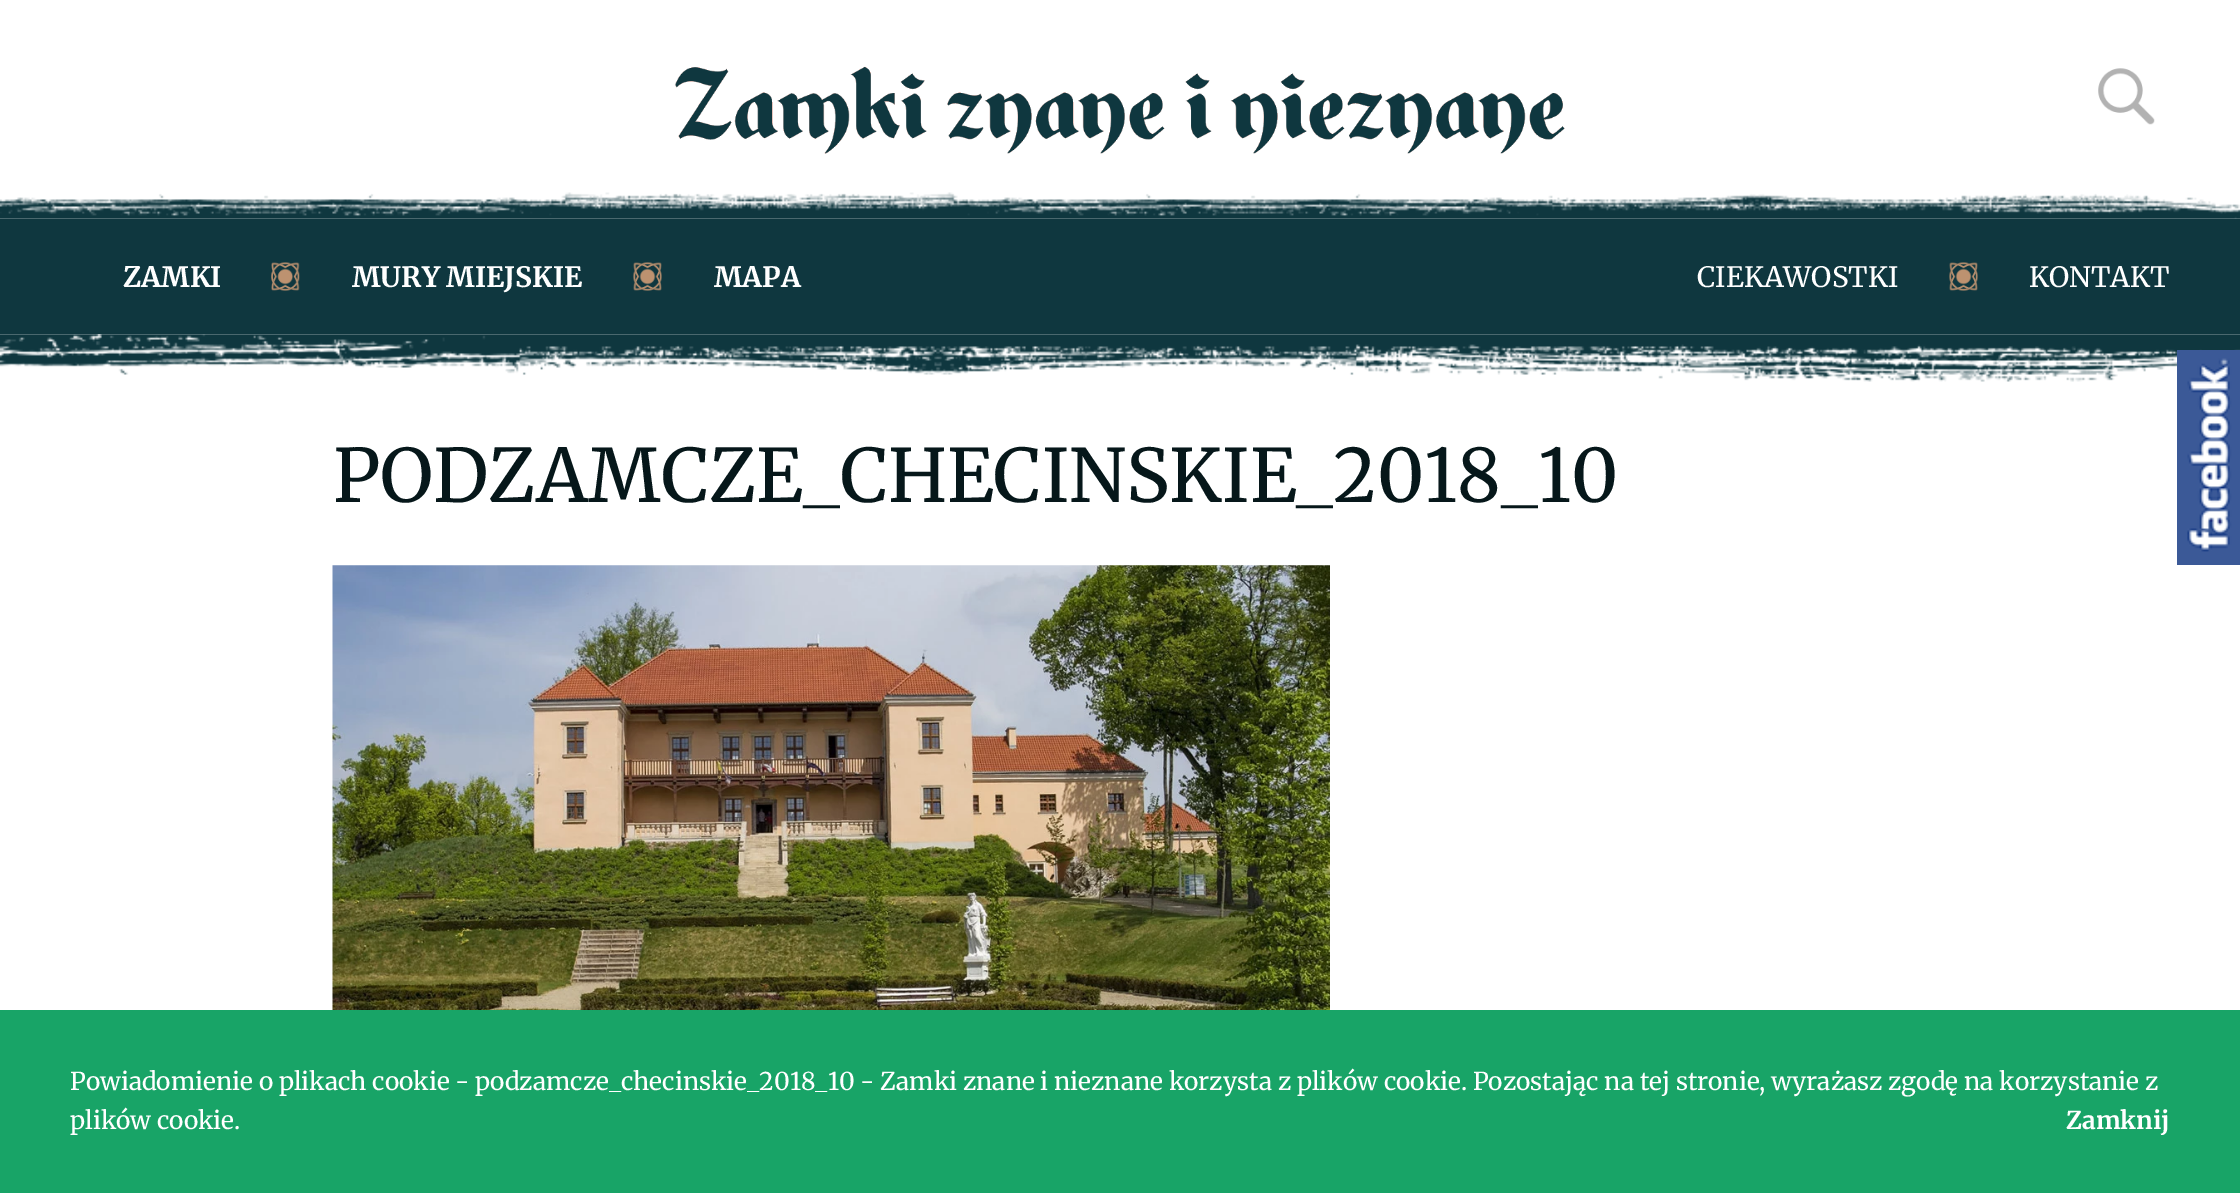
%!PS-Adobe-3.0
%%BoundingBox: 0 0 2240 1193
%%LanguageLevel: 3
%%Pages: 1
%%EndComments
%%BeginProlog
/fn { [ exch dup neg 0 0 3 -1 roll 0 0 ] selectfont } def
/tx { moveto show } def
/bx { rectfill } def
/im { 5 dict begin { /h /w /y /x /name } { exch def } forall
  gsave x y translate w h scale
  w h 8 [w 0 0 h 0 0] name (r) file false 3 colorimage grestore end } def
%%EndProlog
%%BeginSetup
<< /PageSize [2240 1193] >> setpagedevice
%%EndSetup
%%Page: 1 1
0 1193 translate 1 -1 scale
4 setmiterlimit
1 setgray
0 0 2240 1193 bx
(image0.raw) 674 66 891 88 im
(image1.raw) 2098 68 57 57 im
0.059 0.216 0.247 setrgbcolor
0 219 2240 115 bx
(image2.raw) 0 192 2240 27 im
(image3.raw) 271 262 29 29 im
/Merriweather-Bold 28 fn
1 setgray
(ZAMKI) 123 287 tx
(image4.raw) 633 262 29 29 im
(MURY MIEJSKIE) 352 287 tx
(MAPA) 714 287 tx
(image5.raw) 1949 262 29 29 im
/Merriweather-Regular 28 fn
(CIEKAWOSTKI) 1697 287 tx
(KONTAKT) 2029 287 tx
(image6.raw) 0 334 2240 48 im
/Merriweather-Regular 73.5 fn
0.024 0.09 0.102 setrgbcolor
(PODZAMCZE_CHECINSKIE_2018_10) 333 502 tx
(image7.raw) 332 565 998 445 im
(image8.raw) 2177 350 63 215 im
0.094 0.643 0.404 setrgbcolor
0 1010 2240 183 bx
/Merriweather-Regular 24.5 fn
1 setgray
(Powiadomienie o plikach cookie - podzamcze_checinskie_2018_10 - Zamki znane i nieznane korzysta z plików cookie. Pozostając na tej stronie, wyrażasz zgodę na korzystanie z) 70 1090 tx
(plików cookie.) 70 1129 tx
/Merriweather-Bold 24.5 fn
(Zamknij) 2066 1129 tx
showpage
%%EOF
